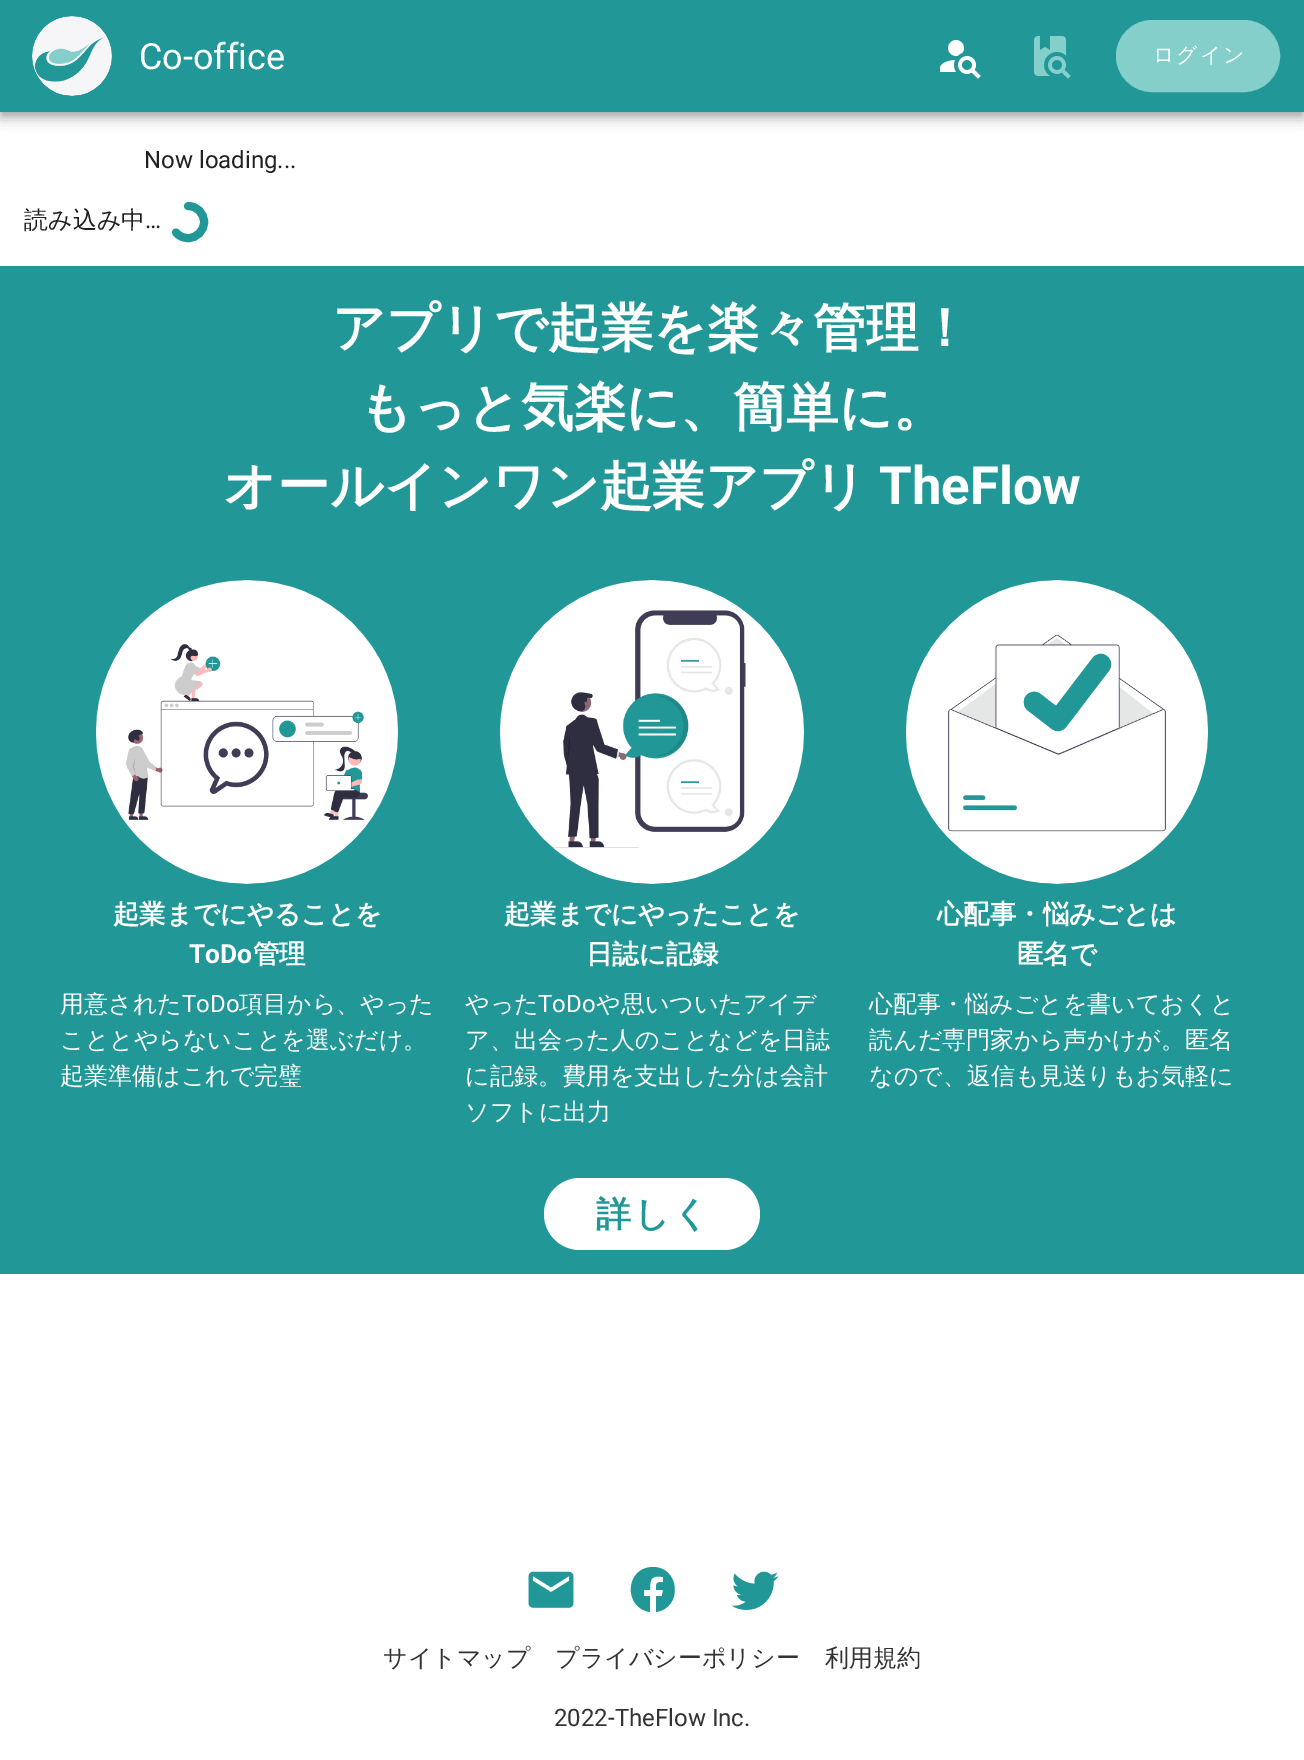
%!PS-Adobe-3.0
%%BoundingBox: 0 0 1304 1760
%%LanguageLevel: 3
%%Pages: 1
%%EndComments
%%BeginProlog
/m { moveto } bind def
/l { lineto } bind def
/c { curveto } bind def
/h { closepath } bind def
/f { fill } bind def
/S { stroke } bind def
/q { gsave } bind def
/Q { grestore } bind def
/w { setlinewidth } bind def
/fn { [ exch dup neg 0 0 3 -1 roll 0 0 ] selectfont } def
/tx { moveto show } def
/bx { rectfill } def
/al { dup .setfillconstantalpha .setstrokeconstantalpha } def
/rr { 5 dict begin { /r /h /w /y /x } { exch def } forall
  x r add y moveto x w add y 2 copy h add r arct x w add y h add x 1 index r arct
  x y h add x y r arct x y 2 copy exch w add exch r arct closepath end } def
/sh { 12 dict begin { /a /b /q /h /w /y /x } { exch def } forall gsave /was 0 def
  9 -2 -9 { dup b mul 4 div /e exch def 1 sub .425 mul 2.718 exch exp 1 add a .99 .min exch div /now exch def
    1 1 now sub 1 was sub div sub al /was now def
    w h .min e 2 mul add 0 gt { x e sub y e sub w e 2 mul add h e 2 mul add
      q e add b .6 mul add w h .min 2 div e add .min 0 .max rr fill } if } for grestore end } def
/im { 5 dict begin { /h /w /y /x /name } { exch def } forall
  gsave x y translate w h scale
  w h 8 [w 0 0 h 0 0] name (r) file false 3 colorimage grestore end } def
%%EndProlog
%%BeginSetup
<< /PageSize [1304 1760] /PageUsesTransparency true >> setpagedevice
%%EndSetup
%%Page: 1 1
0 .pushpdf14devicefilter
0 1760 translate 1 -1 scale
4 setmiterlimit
1 setgray
0 0 1304 1760 bx
0 setgray
0 2 1304 112 0 10 0.12 sh
0 8 1304 112 0 5 0.14 sh
2 6 1300 108 0 4 0.2 sh
0.129 0.596 0.592 setrgbcolor
0 0 1304 112 bx
(image0.raw) 32 16 80 80 im
/Roboto-Regular 36 fn
1 setgray
(Co-office) 139 69 tx
(image1.raw) 940 40 41 39 im
(image2.raw) 1034 36 37 43 im
0.522 0.812 0.796 setrgbcolor
1117 21 162 70 35 rr q f Q
2 w
S
/WenQuanYiZenHei-Medium 21 fn
1 setgray
1153 62 m 2 0 (ログイン) ashow
/Roboto-Regular 24 fn
0.129 setgray
(Now loading...) 144 168 tx
/WenQuanYiZenHei-Medium 24 fn
(読み込み中) 24 228 tx
/Roboto-Regular 24 fn
(…) 145 228 tx
0.129 0.596 0.592 setrgbcolor
8 w
1 setlinecap
188 206 m 197 206 204 213 204 222 c 204 231 197 238 188 238 c 183 238 179 236 176 232.5 c S
0 266 1304 1008 bx
/WenQuanYiZenHei-Bold 52.75 fn
1 setgray
(アプリで起業を楽々管理！) 332 346 tx
(もっと気楽に、簡単に。) 359 425 tx
(オールインワン起業アプリ) 223 504 tx
/Roboto-Bold 52.75 fn
(TheFlow) 879 504 tx
(image3.raw) 96 580 302 304 im
/WenQuanYiZenHei-Bold 26.4 fn
(起業までにやることを) 113 923 tx
/Roboto-Bold 26.4 fn
(ToDo) 189 963 tx
/WenQuanYiZenHei-Bold 26.4 fn
(管理) 253 963 tx
/WenQuanYiZenHei-Medium 24 fn
(用意された) 60 1012 tx
/Roboto-Regular 24 fn
(ToDo) 182 1012 tx
/WenQuanYiZenHei-Medium 24 fn
(項目から、やった) 239 1012 tx
(こととやらないことを選ぶだけ。) 60 1048 tx
(起業準備はこれで完璧) 60 1084 tx
(image4.raw) 500 580 304 304 im
/WenQuanYiZenHei-Bold 26.4 fn
(起業までにやったことを) 504 923 tx
(日誌に記録) 586 963 tx
/WenQuanYiZenHei-Medium 24 fn
(やった) 465 1012 tx
/Roboto-Regular 24 fn
(ToDo) 538 1012 tx
/WenQuanYiZenHei-Medium 24 fn
(や思いついたアイデ) 596 1012 tx
(ア、出会った人のことなどを日誌) 465 1048 tx
(に記録。費用を支出した分は会計) 465 1084 tx
(ソフトに出力) 465 1120 tx
(image5.raw) 906 580 302 304 im
/WenQuanYiZenHei-Bold 26.4 fn
(心配事・悩みごとは) 937 923 tx
(匿名で) 1017 963 tx
/WenQuanYiZenHei-Medium 24 fn
(心配事・悩みごとを書いておくと) 869 1012 tx
(読んだ専門家から声かけが。匿名) 869 1048 tx
(なので、返信も見送りもお気軽に) 869 1084 tx
544 1178 216 72 36 rr f
/WenQuanYiZenHei-Bold 35 fn
0.129 0.596 0.592 setrgbcolor
596 1226 m 3 0 (詳しく) ashow
(image6.raw) 528 1571 46 37 im
653 1567 m 625 1567 623 1608 650 1612 c 650 1596 l 644 1596 l 644 1590 l 650 1590 l 650 1579 651 1575 663 1577 c 663 1582 l 656 1582 656 1583 656 1590 c 663 1590 l 662 1596 l 656 1596 l 656 1612 l 683 1608 680 1567 653 1567 c h f
(image7.raw) 731 1571 48 39 im
/WenQuanYiZenHei-Medium 24 fn
0.2 setgray
(サイトマップ) 383 1666 tx
(プライバシーポリシー) 555 1666 tx
(利用規約) 825 1666 tx
/Roboto-Regular 24 fn
(2022-TheFlow Inc.) 554 1726 tx
.poppdf14devicefilter showpage
%%EOF
